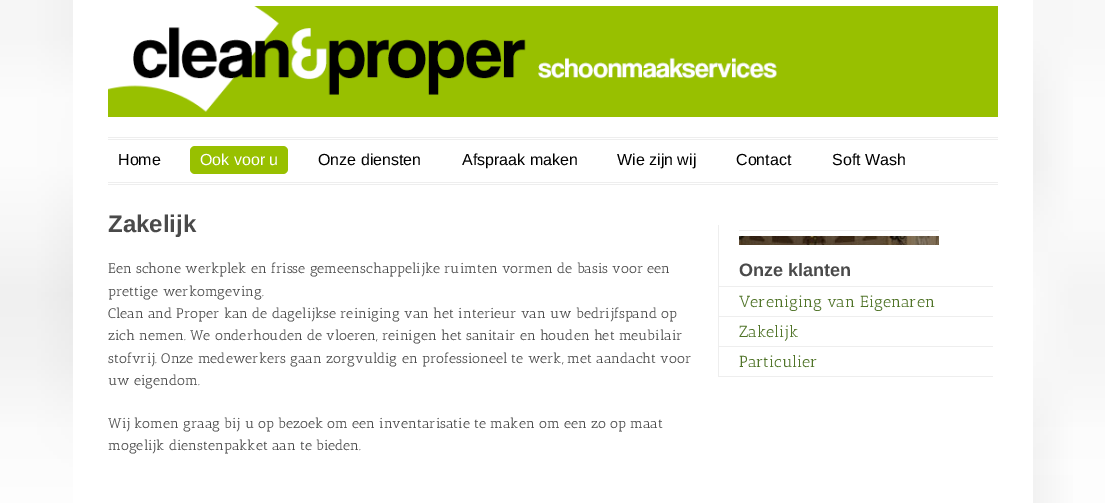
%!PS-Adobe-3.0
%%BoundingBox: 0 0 1105 503
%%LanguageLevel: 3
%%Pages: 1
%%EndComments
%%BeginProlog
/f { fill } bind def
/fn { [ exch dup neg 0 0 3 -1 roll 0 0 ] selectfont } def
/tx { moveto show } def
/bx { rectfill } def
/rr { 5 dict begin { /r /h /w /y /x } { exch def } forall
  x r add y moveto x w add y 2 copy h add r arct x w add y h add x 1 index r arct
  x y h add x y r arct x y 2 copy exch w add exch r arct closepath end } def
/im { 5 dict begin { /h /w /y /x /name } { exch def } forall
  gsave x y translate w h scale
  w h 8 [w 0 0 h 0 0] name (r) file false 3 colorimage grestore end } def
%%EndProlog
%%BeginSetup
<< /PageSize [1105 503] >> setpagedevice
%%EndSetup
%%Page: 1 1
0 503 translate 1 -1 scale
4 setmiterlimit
1 setgray
0 0 1105 503 bx
(image0.raw) 0 0 1105 503 im
73 0 960 503 bx
(image1.raw) 108 6 890 111 im
0.933 setgray
108 137 890 1 bx
108 139 890 1 bx
108 182 890 1 bx
108 184 890 1 bx
/LiberationSans-Regular 16 fn
0 setgray
(Home) 118 165 tx
0.596 0.753 0 setrgbcolor
190 146 98 28 5 rr f
1 setgray
(Ook voor u) 200 165 tx
0 setgray
(Onze diensten) 318 165 tx
(Afspraak maken) 462 165 tx
(Wie zijn wij) 617 165 tx
(Contact) 736 165 tx
(Soft Wash) 832 165 tx
/LiberationSans-Bold 24 fn
0.29 setgray
(Zakelijk) 108 232 tx
/AnticSlab-Regular 14 fn
(Een schone werkplek en frisse gemeenschappelijke ruimten vormen de basis voor een) 108 273 tx
(prettige werkomgeving.) 108 296 tx
(Clean and Proper kan de dagelijkse reiniging van het interieur van uw bedrijfspand op) 108 318 tx
(zich nemen. We onderhouden de vloeren, reinigen het sanitair en houden het meubilair) 108 340 tx
(stofvrij. Onze medewerkers gaan zorgvuldig en professioneel te werk, met aandacht voor) 108 363 tx
(uw eigendom.) 108 385 tx
(Wij komen graag bij u op bezoek om een inventarisatie te maken om een zo op maat) 108 428 tx
(mogelijk dienstenpakket aan te bieden.) 108 450 tx
0.933 setgray
718 225 1 152 bx
739 230 200 1 bx
(image2.raw) 739 236 200 9 im
/LiberationSans-Bold 18 fn
0.29 setgray
(Onze klanten) 739 276 tx
0.933 setgray
719 286 274 1 bx
719 316 274 1 bx
/AnticSlab-Regular 16 fn
0.31 0.451 0.153 setrgbcolor
(Vereniging van Eigenaren) 739 307 tx
0.933 setgray
719 346 274 1 bx
0.31 0.451 0.153 setrgbcolor
(Zakelijk) 739 337 tx
0.933 setgray
719 376 274 1 bx
0.31 0.451 0.153 setrgbcolor
(Particulier) 739 367 tx
showpage
%%EOF
